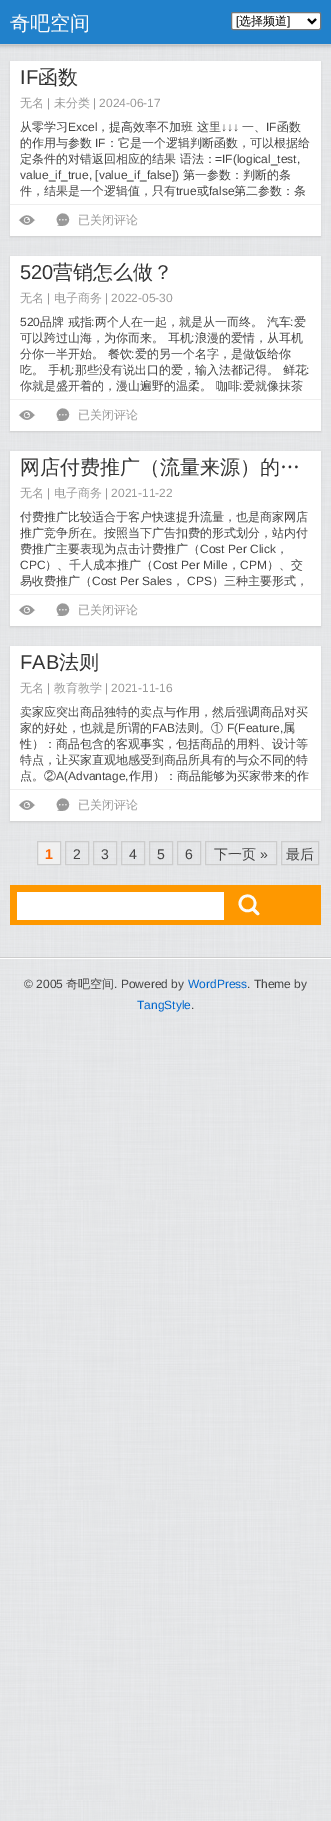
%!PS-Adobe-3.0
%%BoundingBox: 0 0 331 1821
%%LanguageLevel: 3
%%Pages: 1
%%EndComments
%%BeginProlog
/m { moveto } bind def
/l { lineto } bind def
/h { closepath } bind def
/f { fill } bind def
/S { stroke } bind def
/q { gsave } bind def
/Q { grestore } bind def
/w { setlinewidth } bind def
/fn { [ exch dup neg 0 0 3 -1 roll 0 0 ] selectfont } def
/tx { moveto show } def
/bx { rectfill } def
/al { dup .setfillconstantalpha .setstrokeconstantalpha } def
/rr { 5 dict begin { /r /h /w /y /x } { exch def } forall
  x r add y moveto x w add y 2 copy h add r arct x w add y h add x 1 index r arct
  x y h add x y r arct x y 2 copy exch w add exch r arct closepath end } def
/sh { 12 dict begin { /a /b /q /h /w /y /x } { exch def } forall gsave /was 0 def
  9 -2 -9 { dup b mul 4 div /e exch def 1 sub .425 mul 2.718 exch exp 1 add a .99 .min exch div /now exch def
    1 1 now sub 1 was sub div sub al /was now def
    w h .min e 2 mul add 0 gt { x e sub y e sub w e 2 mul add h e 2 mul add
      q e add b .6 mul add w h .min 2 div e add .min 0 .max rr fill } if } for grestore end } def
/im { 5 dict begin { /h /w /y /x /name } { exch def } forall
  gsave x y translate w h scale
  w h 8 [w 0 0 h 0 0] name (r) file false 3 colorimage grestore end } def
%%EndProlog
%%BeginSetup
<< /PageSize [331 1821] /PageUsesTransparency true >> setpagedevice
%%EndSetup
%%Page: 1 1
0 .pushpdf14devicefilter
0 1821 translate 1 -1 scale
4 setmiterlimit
0.925 0.933 0.941 setrgbcolor
0 0 331 1821 bx
(image0.raw) 0 45 331 1776 im
0.8 setgray
0 957 331 1 bx
0.6 setgray
0 0 331 45 0 2.5 1 sh
0.129 0.506 0.796 setrgbcolor
0 0 331 44 bx
0.8 setgray
0 44 331 1 bx
/WenQuanYiZenHei-Medium 20 fn
0.984 setgray
(奇吧空间) 10 30 tx
1 setgray
231.5 12.5 89 17 1.5 rr q f Q
0.463 setgray
S
0 setgray
2 w
308 19 m 312 23 l 316 19 l S
/LiberationSans-Regular 12 fn
([) 236 25 tx
/WenQuanYiZenHei-Medium 12 fn
(选择频道) 239 25 tx
/LiberationSans-Regular 12 fn
(]) 287 25 tx
0.8 setgray
10 62 311 175 0 1 1 sh
1 setgray
10 61 311 175 bx
/LiberationSans-Regular 20 fn
0.2 setgray
(IF) 20 84 tx
/WenQuanYiZenHei-Medium 20 fn
(函数) 38 84 tx
/WenQuanYiZenHei-Medium 12 fn
0.6 setgray
(无名) 20 107 tx
/LiberationSans-Regular 12 fn
(|) 47 107 tx
/WenQuanYiZenHei-Medium 12 fn
(未分类) 54 107 tx
/LiberationSans-Regular 12 fn
(| 2024-06-17) 93 107 tx
/WenQuanYiZenHei-Medium 12 fn
0.267 setgray
(从零学习) 20 131 tx
/LiberationSans-Regular 12 fn
(Excel) 68 131 tx
/WenQuanYiZenHei-Medium 12 fn
(，提高效率不加班 这里) 97 131 tx
/LiberationSans-Regular 12 fn
(↓↓↓) 221 131 tx
/WenQuanYiZenHei-Medium 12 fn
(一、) 242 131 tx
/LiberationSans-Regular 12 fn
(IF) 266 131 tx
/WenQuanYiZenHei-Medium 12 fn
(函数) 277 131 tx
(的作用与参数) 20 147 tx
/LiberationSans-Regular 12 fn
(IF) 95 147 tx
/WenQuanYiZenHei-Medium 12 fn
(：它是一个逻辑判断函数，可以根据给) 106 147 tx
(定条件的对错返回相应的结果 语法：) 20 163 tx
/LiberationSans-Regular 12 fn
(=IF\(logical_test,) 215 163 tx
(value_if_true, [value_if_false]\)) 20 179 tx
/WenQuanYiZenHei-Medium 12 fn
(第一参数：判断的条) 183 179 tx
(件，结果是一个逻辑值，只有) 20 195 tx
/LiberationSans-Regular 12 fn
(true) 176 195 tx
/WenQuanYiZenHei-Medium 12 fn
(或) 197 195 tx
/LiberationSans-Regular 12 fn
(false) 209 195 tx
/WenQuanYiZenHei-Medium 12 fn
(第二参数：条) 234 195 tx
0.933 setgray
10 204 311 1 bx
/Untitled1-Medium 14 fn
0.6 setgray
(ė) 20 224 tx
(6) 56 224 tx
/WenQuanYiZenHei-Medium 12 fn
(已关闭评论) 78 224 tx
0.8 setgray
10 257 311 175 0 1 1 sh
1 setgray
10 256 311 175 bx
/LiberationSans-Regular 20 fn
0.2 setgray
(520) 20 279 tx
/WenQuanYiZenHei-Medium 20 fn
(营销怎么做？) 53 279 tx
/WenQuanYiZenHei-Medium 12 fn
0.6 setgray
(无名) 20 302 tx
/LiberationSans-Regular 12 fn
(|) 47 302 tx
/WenQuanYiZenHei-Medium 12 fn
(电子商务) 54 302 tx
/LiberationSans-Regular 12 fn
(| 2022-05-30) 105 302 tx
0.267 setgray
(520) 20 326 tx
/WenQuanYiZenHei-Medium 12 fn
(品牌 戒指 两个人在一起，就是从一而终。 汽车 爱) 40 326 tx
/LiberationSans-Regular 12 fn
(:) 91 326 tx
(:) 290 326 tx
/WenQuanYiZenHei-Medium 12 fn
(可以跨过山海，为你而来。 耳机 浪漫的爱情，从耳机) 20 342 tx
/LiberationSans-Regular 12 fn
(:) 191 342 tx
/WenQuanYiZenHei-Medium 12 fn
(分你一半开始。 餐饮 爱的另一个名字，是做饭给你) 20 358 tx
/LiberationSans-Regular 12 fn
(:) 131 358 tx
/WenQuanYiZenHei-Medium 12 fn
(吃。 手机 那些没有说出口的爱，输入法都记得。 鲜花) 20 374 tx
/LiberationSans-Regular 12 fn
(:) 71 374 tx
(:) 306 374 tx
/WenQuanYiZenHei-Medium 12 fn
(你就是盛开着的，漫山遍野的温柔。 咖啡 爱就像抹茶) 20 390 tx
/LiberationSans-Regular 12 fn
(:) 239 390 tx
0.933 setgray
10 399 311 1 bx
/Untitled1-Medium 14 fn
0.6 setgray
(ė) 20 419 tx
(6) 56 419 tx
/WenQuanYiZenHei-Medium 12 fn
(已关闭评论) 78 419 tx
0.8 setgray
10 452 311 175 0 1 1 sh
1 setgray
10 451 311 175 bx
/WenQuanYiZenHei-Medium 20 fn
0.2 setgray
(网店付费推广（流量来源）的…) 20 474 tx
/WenQuanYiZenHei-Medium 12 fn
0.6 setgray
(无名) 20 497 tx
/LiberationSans-Regular 12 fn
(|) 47 497 tx
/WenQuanYiZenHei-Medium 12 fn
(电子商务) 54 497 tx
/LiberationSans-Regular 12 fn
(| 2021-11-22) 105 497 tx
/WenQuanYiZenHei-Medium 12 fn
0.267 setgray
(付费推广比较适合于客户快速提升流量，也是商家网店) 20 521 tx
(推广竞争所在。按照当下广告扣费的形式划分，站内付) 20 537 tx
(费推广主要表现为点击计费推广（) 20 553 tx
/LiberationSans-Regular 12 fn
(Cost Per Click) 200 553 tx
/WenQuanYiZenHei-Medium 12 fn
(，) 276 553 tx
/LiberationSans-Regular 12 fn
(CPC) 20 569 tx
/WenQuanYiZenHei-Medium 12 fn
(）、千人成本推广（) 45 569 tx
/LiberationSans-Regular 12 fn
(Cost Per Mille) 153 569 tx
/WenQuanYiZenHei-Medium 12 fn
(，) 228 569 tx
/LiberationSans-Regular 12 fn
(CPM) 240 569 tx
/WenQuanYiZenHei-Medium 12 fn
(）、交) 267 569 tx
(易收费推广（) 20 585 tx
/LiberationSans-Regular 12 fn
(Cost Per Sales) 92 585 tx
/WenQuanYiZenHei-Medium 12 fn
(，) 172 585 tx
/LiberationSans-Regular 12 fn
(CPS) 187 585 tx
/WenQuanYiZenHei-Medium 12 fn
(）三种主要形式，) 212 585 tx
0.933 setgray
10 594 311 1 bx
/Untitled1-Medium 14 fn
0.6 setgray
(ė) 20 614 tx
(6) 56 614 tx
/WenQuanYiZenHei-Medium 12 fn
(已关闭评论) 78 614 tx
0.8 setgray
10 647 311 175 0 1 1 sh
1 setgray
10 646 311 175 bx
/LiberationSans-Regular 20 fn
0.2 setgray
(FAB) 20 669 tx
/WenQuanYiZenHei-Medium 20 fn
(法则) 59 669 tx
/WenQuanYiZenHei-Medium 12 fn
0.6 setgray
(无名) 20 692 tx
/LiberationSans-Regular 12 fn
(|) 47 692 tx
/WenQuanYiZenHei-Medium 12 fn
(教育教学) 54 692 tx
/LiberationSans-Regular 12 fn
(| 2021-11-16) 105 692 tx
/WenQuanYiZenHei-Medium 12 fn
0.267 setgray
(卖家应突出商品独特的卖点与作用，然后强调商品对买) 20 716 tx
(家的好处，也就是所谓的) 20 732 tx
/LiberationSans-Regular 12 fn
(FAB) 152 732 tx
/WenQuanYiZenHei-Medium 12 fn
(法则。①) 175 732 tx
/LiberationSans-Regular 12 fn
(F\(Feature,) 227 732 tx
/WenQuanYiZenHei-Medium 12 fn
(属) 283 732 tx
(性）：商品包含的客观事实，包括商品的用料、设计等) 20 748 tx
(特点，让买家直观地感受到商品所具有的与众不同的特) 20 764 tx
(点。②) 20 780 tx
/LiberationSans-Regular 12 fn
(A\(Advantage,) 56 780 tx
/WenQuanYiZenHei-Medium 12 fn
(作用）：商品能够为买家带来的作) 129 780 tx
0.933 setgray
10 789 311 1 bx
/Untitled1-Medium 14 fn
0.6 setgray
(ė) 20 809 tx
(6) 56 809 tx
/WenQuanYiZenHei-Medium 12 fn
(已关闭评论) 78 809 tx
0.941 setgray
37.5 841.5 m 60.5 841.5 l 60.5 864.5 l 37.5 864.5 l h q f Q
0.8 setgray
1 w
S
/LiberationSans-Bold 14 fn
1 0.4 0 setrgbcolor
(1) 45 859 tx
0.8 setgray
65.5 841.5 23 23 rectstroke
/LiberationSans-Regular 14 fn
0.267 setgray
(2) 73 859 tx
0.8 setgray
93.5 841.5 23 23 rectstroke
0.267 setgray
(3) 101 859 tx
0.8 setgray
121.5 841.5 23 23 rectstroke
0.267 setgray
(4) 129 859 tx
0.8 setgray
149.5 841.5 23 23 rectstroke
0.267 setgray
(5) 157 859 tx
0.8 setgray
177.5 841.5 23 23 rectstroke
0.267 setgray
(6) 185 859 tx
0.8 setgray
205.5 841.5 71 23 rectstroke
/WenQuanYiZenHei-Medium 14 fn
0.267 setgray
(下一页) 214 859 tx
/LiberationSans-Regular 14 fn
(») 260 859 tx
0.8 setgray
281.5 841.5 37 23 rectstroke
/WenQuanYiZenHei-Medium 14 fn
0.267 setgray
(最后) 286 859 tx
0.996 0.596 0 setrgbcolor
10 885 311 40 bx
1 setgray
17 892 207 28 bx
/Untitled1-Medium 24 fn
0.984 setgray
(ő) 237 912 tx
1 setgray
0 958 331 1 bx
/LiberationSans-Regular 12 fn
0.267 setgray
(© 2005) 24 988 tx
/WenQuanYiZenHei-Medium 12 fn
(奇吧空间) 66 988 tx
/LiberationSans-Regular 12 fn
(. Powered by) 114 988 tx
0 0.4 0.8 setrgbcolor
(WordPress) 188 988 tx
0.267 setgray
(. Theme by) 247 988 tx
0 0.4 0.8 setrgbcolor
(TangStyle) 137 1009 tx
0.267 setgray
(.) 191 1009 tx
.poppdf14devicefilter showpage
%%EOF
